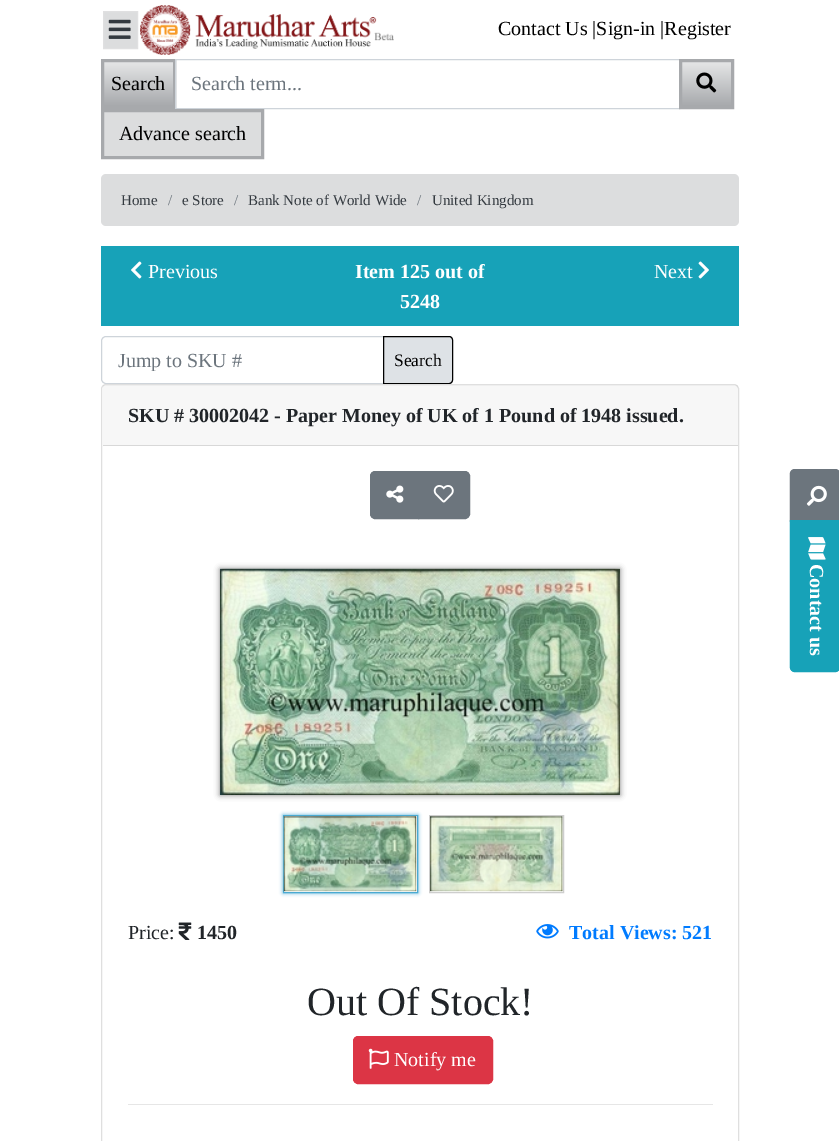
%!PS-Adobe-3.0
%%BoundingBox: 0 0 839 1141
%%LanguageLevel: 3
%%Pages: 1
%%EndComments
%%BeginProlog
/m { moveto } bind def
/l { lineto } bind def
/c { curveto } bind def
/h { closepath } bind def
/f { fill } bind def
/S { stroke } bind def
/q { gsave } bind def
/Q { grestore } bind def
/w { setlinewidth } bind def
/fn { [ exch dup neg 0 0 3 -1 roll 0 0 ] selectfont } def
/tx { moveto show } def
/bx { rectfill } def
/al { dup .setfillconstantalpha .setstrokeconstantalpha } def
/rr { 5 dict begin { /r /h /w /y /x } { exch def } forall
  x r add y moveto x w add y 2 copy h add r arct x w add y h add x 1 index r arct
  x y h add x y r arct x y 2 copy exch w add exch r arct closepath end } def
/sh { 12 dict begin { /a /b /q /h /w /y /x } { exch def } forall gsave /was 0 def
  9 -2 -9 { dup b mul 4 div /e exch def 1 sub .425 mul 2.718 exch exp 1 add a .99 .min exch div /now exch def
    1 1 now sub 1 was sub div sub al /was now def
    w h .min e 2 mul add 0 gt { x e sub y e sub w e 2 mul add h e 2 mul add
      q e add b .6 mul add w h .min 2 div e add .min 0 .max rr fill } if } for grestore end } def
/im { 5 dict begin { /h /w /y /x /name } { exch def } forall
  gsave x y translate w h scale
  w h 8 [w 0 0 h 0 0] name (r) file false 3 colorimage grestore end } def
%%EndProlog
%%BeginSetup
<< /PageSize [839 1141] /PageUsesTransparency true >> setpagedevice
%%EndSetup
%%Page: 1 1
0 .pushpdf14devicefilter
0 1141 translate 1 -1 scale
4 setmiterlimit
1 setgray
0 0 839 1141 bx
0.863 0.867 0.871 setrgbcolor
103.5 11.5 m 137.5 11.5 l 137.5 48.5 l 103.5 48.5 l h q f Q
0.878 0.878 0.882 setrgbcolor
S
(image0.raw) 108 19 23 20 im
(image1.raw) 140 5 254 50 im
/LiberationSerif-Regular 20 fn
0 setgray
(Contact Us |Sign-in |Register) 498 35 tx
q 104 62 m 173 62 l 173 106 l 104 106 l h clip newpath
<< /ShadingType 2 /ColorSpace /DeviceRGB /Coords [139 61 139 106] /Extend [true true] /Function << /FunctionType 2 /Domain [0 1] /C0 [0.902 0.906 0.91] /C1 [0.655 0.663 0.675] /N 1 >> >> shfill Q
0.655 0.663 0.675 setrgbcolor
3 w
102.5 60.5 72 47 rectstroke
0 setgray
(Search) 111 90 tx
0.808 0.831 0.855 setrgbcolor
1 w
175.5 59.5 504 49 rectstroke
0.424 0.459 0.49 setrgbcolor
(Search term...) 191 90 tx
q 682 62 m 731 62 l 731 106 l 682 106 l h clip newpath
<< /ShadingType 2 /ColorSpace /DeviceRGB /Coords [706 61 706 106] /Extend [true true] /Function << /FunctionType 2 /Domain [0 1] /C0 [0.902 0.906 0.91] /C1 [0.655 0.663 0.675] /N 1 >> >> shfill Q
0.655 0.663 0.675 setrgbcolor
3 w
680.5 60.5 52 47 rectstroke
(image2.raw) 696 72 21 21 im
0.863 0.867 0.871 setrgbcolor
102.5 110.5 m 262.5 110.5 l 262.5 157.5 l 102.5 157.5 l h q f Q
0.655 0.663 0.675 setrgbcolor
S
0 setgray
(Advance search) 119 140 tx
0.863 0.867 0.871 setrgbcolor
101 174 638 52 5 rr f
/LiberationSerif-Regular 15 fn
0.204 0.227 0.251 setrgbcolor
(Home) 121 205 tx
0.424 0.459 0.49 setrgbcolor
(/) 168 205 tx
0.204 0.227 0.251 setrgbcolor
(e Store) 182 205 tx
0.424 0.459 0.49 setrgbcolor
(/) 234 205 tx
0.204 0.227 0.251 setrgbcolor
(Bank Note of World Wide) 248 205 tx
0.424 0.459 0.49 setrgbcolor
(/) 417 205 tx
0.204 0.227 0.251 setrgbcolor
(United Kingdom) 432 205 tx
0.09 0.635 0.722 setrgbcolor
101 246 638 80 bx
(image3.raw) 131 261 11 18 im
/LiberationSerif-Regular 20 fn
1 setgray
(Previous) 148 278 tx
/LiberationSerif-Bold 20 fn
(Item 125 out of) 355 278 tx
(5248) 400 308 tx
/LiberationSerif-Regular 20 fn
(Next) 654 278 tx
(image4.raw) 698 261 11 18 im
0.808 0.831 0.855 setrgbcolor
1 w
106 336.5 m 383.5 336.5 l 383.5 383.5 l 106 383.5 l 103.5 383.5 101.5 381.5 101.5 379 c 101.5 341 l 101.5 338.5 103.5 336.5 106 336.5 c h S
q
118 349 250 22 rectclip
0.424 0.459 0.49 setrgbcolor
(Jump to SKU #) 118 367 tx
Q
0.871 0.886 0.902 setrgbcolor
383.5 336.5 m 449 336.5 l 451 336.5 452.5 338 452.5 340 c 452.5 380 l 452.5 382 451 383.5 449 383.5 c 383.5 383.5 l h q f Q
0 setgray
S
/LiberationSerif-Regular 17.5 fn
(Search) 394 366 tx
0.875 setgray
101.5 384.5 637 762 4.5 rr S
0.03 al
0 setgray
103 385 635 60 bx
1 al
0.847 setgray
103 445 635 1 bx
/LiberationSerif-Bold 20 fn
0.129 0.145 0.161 setrgbcolor
(SKU # 30002042 - Paper Money of UK of 1 Pound of 1948 issued.) 128 422 tx
0.424 0.459 0.49 setrgbcolor
375 471.5 m 418.5 471.5 l 418.5 518.5 l 375 518.5 l 372.5 518.5 370.5 516.5 370.5 514 c 370.5 476 l 370.5 473.5 372.5 471.5 375 471.5 c h q f Q
S
(image5.raw) 386 485 18 18 im
418.5 471.5 m 465 471.5 l 467.5 471.5 469.5 473.5 469.5 476 c 469.5 514 l 469.5 516.5 467.5 518.5 465 518.5 c 418.5 518.5 l h q f Q
S
(image6.raw) 433 485 21 18 im
0 setgray
220 569 400 226 0 3 0.5 sh
(image7.raw) 220 568 400 227 im
0.29 0.663 0.824 setrgbcolor
283 815 135 78 0 2 1 sh
0.29 0.667 0.824 setrgbcolor
283.5 815.5 134 77 rectstroke
0.808 setgray
429.5 815.5 134 77 rectstroke
(image8.raw) 283 816 134 76 im
(image9.raw) 430 816 133 76 im
/LiberationSerif-Regular 20 fn
0.129 0.145 0.161 setrgbcolor
(Price:) 128 939 tx
(image10.raw) 178 922 14 18 im
/LiberationSerif-Bold 20 fn
(1450) 197 939 tx
(image11.raw) 536 924 23 15 im
0 0.482 1 setrgbcolor
(Total Views: 521) 569 939 tx
/LiberationSerif-Regular 40 fn
0.129 0.145 0.161 setrgbcolor
(Out Of Stock!) 307 1015 tx
0.863 0.208 0.271 setrgbcolor
353.5 1036.5 139 47 4.5 rr q f Q
S
(image12.raw) 368 1048 21 21 im
/LiberationSerif-Regular 20 fn
1 setgray
(Notify me) 394 1066 tx
0.902 setgray
128 1104 585 1 bx
0.424 0.459 0.49 setrgbcolor
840 474 m 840 522 l 790 522 l 790 474 l 790 471 792 469 795 469 c 835 469 l 838 469 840 471 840 474 c h f
1.2 w
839.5 474 m 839.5 521 l 790.5 521 l 790.5 474 l 790.5 471.5 792.5 470 795 470 c 835 470 l 837.5 470 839.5 471.5 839.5 474 c h S
(image13.raw) 806 485 21 21 im
0.09 0.635 0.722 setrgbcolor
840 520 m 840 667 l 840 670 838 672 835 672 c 795 672 l 792 672 790 670 790 667 c 790 520 l h f
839.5 521 m 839.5 667 l 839.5 669.5 837.5 671.5 835 671.5 c 795 671.5 l 792.5 671.5 790.5 669.5 790.5 667 c 790.5 521 l h S
(image14.raw) 808 537 18 23 im
/LiberationSerif-Bold 20 fn
1 setgray
q 810 564 translate 90 rotate 0 0 m (Contact us) show Q
.poppdf14devicefilter showpage
%%EOF
